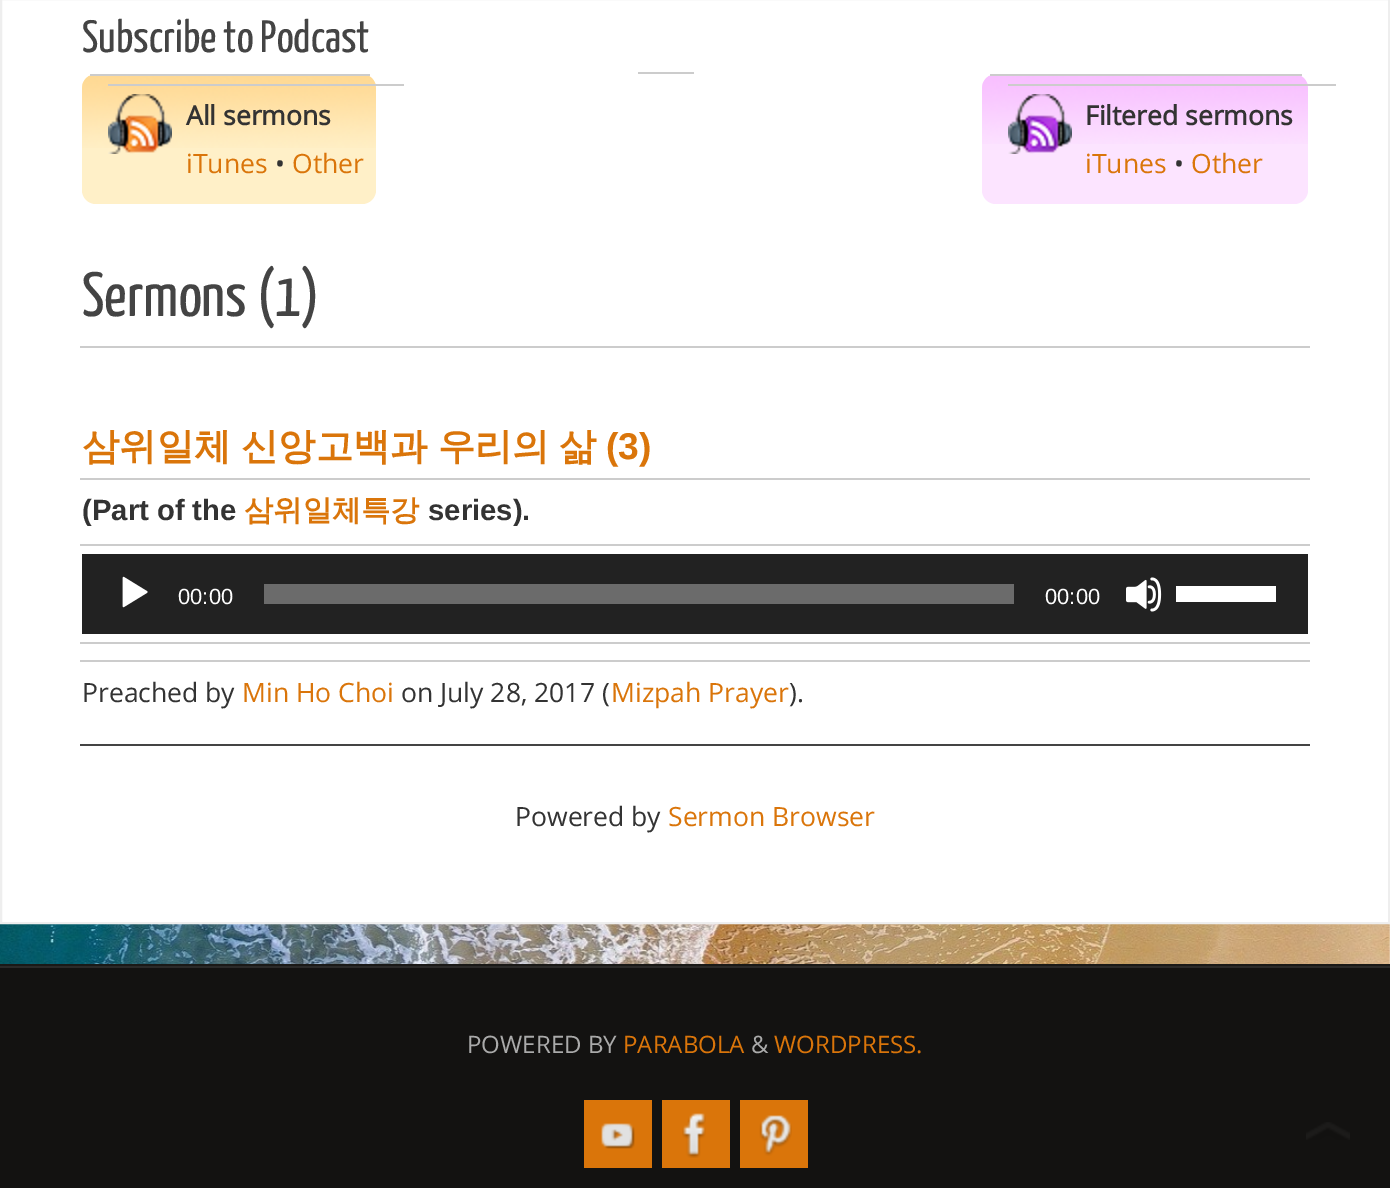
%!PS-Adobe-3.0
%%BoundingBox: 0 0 1390 1188
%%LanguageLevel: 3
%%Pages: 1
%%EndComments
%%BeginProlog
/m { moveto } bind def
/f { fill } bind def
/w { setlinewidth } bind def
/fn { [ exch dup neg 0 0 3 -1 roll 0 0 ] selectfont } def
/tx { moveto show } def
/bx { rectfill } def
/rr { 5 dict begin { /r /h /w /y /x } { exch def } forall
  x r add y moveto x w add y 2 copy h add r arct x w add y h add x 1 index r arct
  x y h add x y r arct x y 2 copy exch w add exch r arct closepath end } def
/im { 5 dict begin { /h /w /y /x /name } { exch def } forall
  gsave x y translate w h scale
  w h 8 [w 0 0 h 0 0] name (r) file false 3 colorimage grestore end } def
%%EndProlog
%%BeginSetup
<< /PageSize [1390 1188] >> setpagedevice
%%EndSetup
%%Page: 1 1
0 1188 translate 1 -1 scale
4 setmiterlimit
1 setgray
0 0 1390 1188 bx
(image0.raw) 0 924 1390 40 im
0.933 setgray
2 w
1 -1 1388 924 rectstroke
/YanoneKaffeesatz-Regular 45.25 fn
0.267 setgray
(Subscribe to Podcast) 82 52 tx
0.8 setgray
638 72 56 2 bx
1 0.941 0.784 setrgbcolor
82 74 294 130 14 rr f
(image1.raw) 82 76 294 72 im
0.8 setgray
90 74 280 2 bx
(image2.raw) 108 94 64 60 im
108 84 296 2 bx
/OpenSans-Bold 26.5 fn
0.2 setgray
(All sermons) 186 125 tx
/OpenSans-Regular 26.5 fn
0.855 0.459 0.039 setrgbcolor
(iTunes) 186 173 tx
0.2 setgray
(•) 275 173 tx
0.855 0.459 0.039 setrgbcolor
(Other) 292 173 tx
0.988 0.894 1 setrgbcolor
982 74 326 130 14 rr f
(image3.raw) 982 76 326 68 im
0.8 setgray
990 74 312 2 bx
(image4.raw) 1008 94 64 60 im
1008 84 328 2 bx
/OpenSans-Bold 26.5 fn
0.2 setgray
(Filtered sermons) 1085 125 tx
/OpenSans-Regular 26.5 fn
0.855 0.459 0.039 setrgbcolor
(iTunes) 1085 173 tx
0.2 setgray
(•) 1174 173 tx
0.855 0.459 0.039 setrgbcolor
(Other) 1191 173 tx
/YanoneKaffeesatz-Regular 62.5 fn
0.267 setgray
(Sermons \(1\)) 82 316 tx
0.8 setgray
80 346 1230 2 bx
/WenQuanYiZenHei-Bold 37.25 fn
0.855 0.459 0.039 setrgbcolor
82 459 m -1 0 32 (삼위일체 신앙고백과 우리의 삶) widthshow
/LiberationSans-Bold 37.25 fn
(\(3\)) 606 459 tx
0.8 setgray
80 478 1230 2 bx
/LiberationSans-Bold 29.25 fn
0.2 setgray
(\(Part of the) 82 520 tx
/WenQuanYiZenHei-Bold 29.25 fn
0.855 0.459 0.039 setrgbcolor
(삼위일체특강) 244 520 tx
/LiberationSans-Bold 29.25 fn
0.2 setgray
(series\).) 428 520 tx
0.8 setgray
80 544 1230 2 bx
0.133 setgray
82 554 1226 80 bx
(image5.raw) 122 576 26 32 im
/LiberationSans-Regular 22 fn
1 setgray
(00:00) 178 604 tx
0.42 setgray
264 584 750 20 bx
1 setgray
(00:00) 1045 604 tx
(image6.raw) 1126 577 36 35 im
1176 586 100 16 bx
0.8 setgray
80 642 1230 2 bx
80 660 1230 2 bx
0.267 setgray
80 744 1230 2 bx
/OpenSans-Regular 26.5 fn
0.2 setgray
(Preached by) 82 702 tx
0.855 0.459 0.039 setrgbcolor
(Min Ho Choi) 242 702 tx
0.2 setgray
(on July 28, 2017 \() 401 702 tx
0.855 0.459 0.039 setrgbcolor
(Mizpah Prayer) 611 702 tx
0.2 setgray
(\).) 789 702 tx
(Powered by) 515 826 tx
0.855 0.459 0.039 setrgbcolor
(Sermon Browser) 668 826 tx
0.102 0.098 0.09 setrgbcolor
0 964 1390 2 bx
0.075 0.071 0.067 setrgbcolor
0 968 1390 220 bx
0.169 0.165 0.161 setrgbcolor
0 966 1390 2 bx
/OpenSans-Regular 24 fn
0.667 setgray
(POWERED BY) 467 1053 tx
0.855 0.459 0.039 setrgbcolor
(PARABOLA) 623 1053 tx
0.667 setgray
(&) 751 1053 tx
0.855 0.459 0.039 setrgbcolor
(WORDPRESS.) 774 1053 tx
584 1100 68 68 bx
(image7.raw) 601 1123 34 26 im
662 1100 68 68 bx
(image8.raw) 682 1113 24 45 im
740 1100 68 68 bx
(image9.raw) 759 1115 33 41 im
(image10.raw) 1306 1122 44 18 im
showpage
%%EOF
